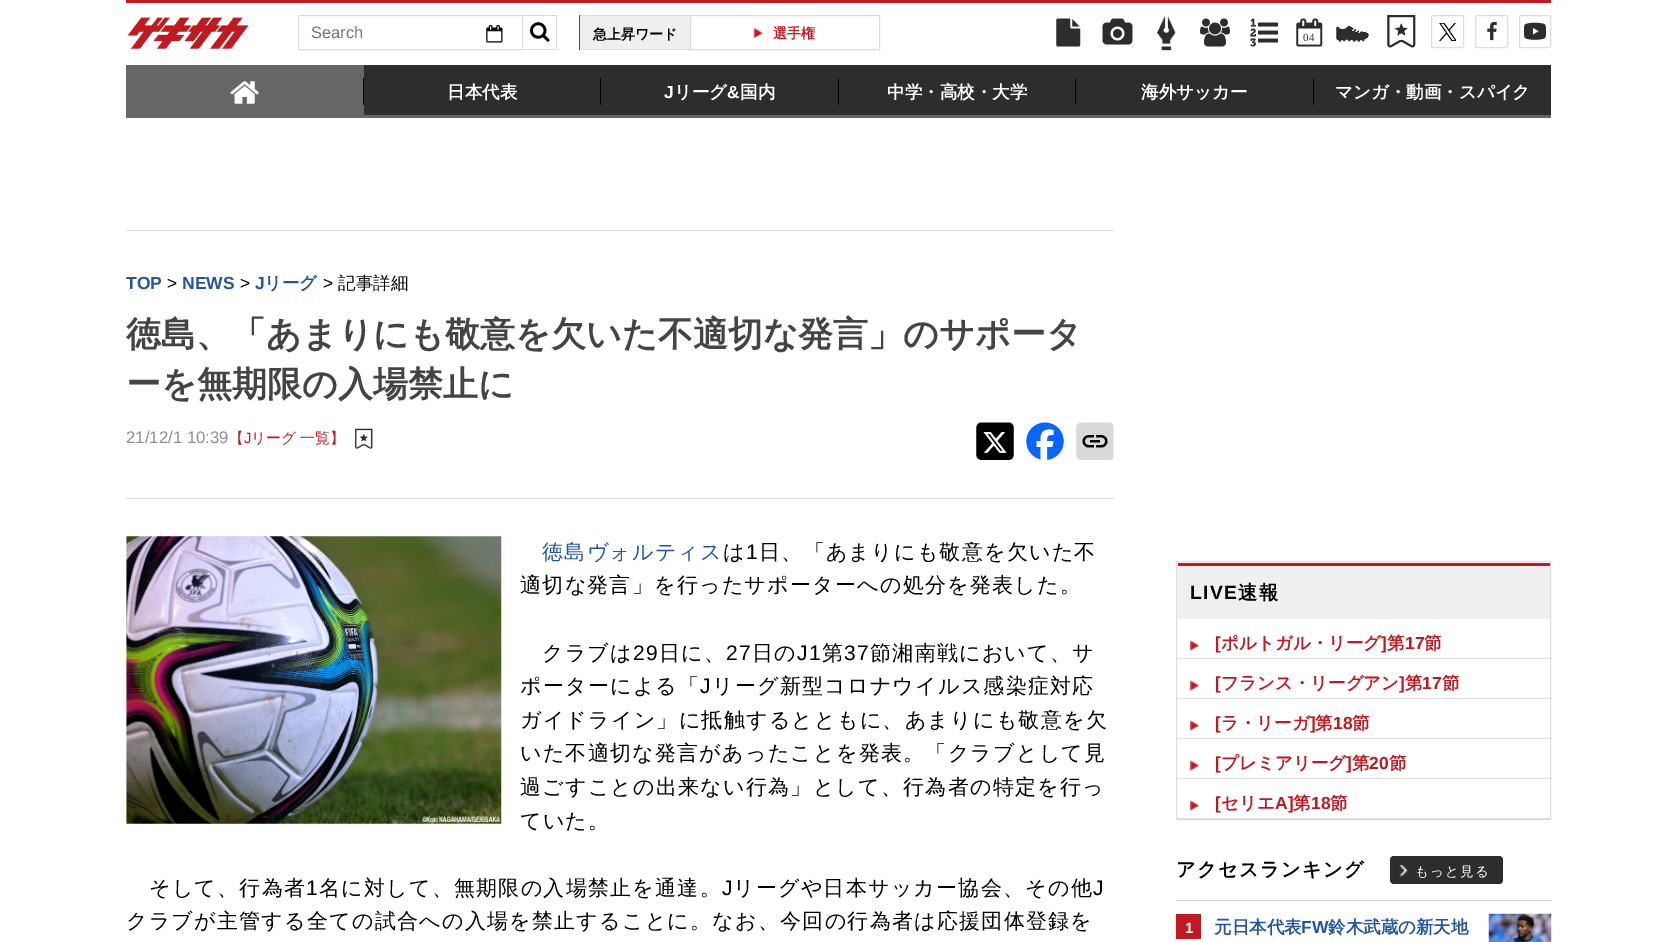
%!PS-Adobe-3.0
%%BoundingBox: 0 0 1677 942
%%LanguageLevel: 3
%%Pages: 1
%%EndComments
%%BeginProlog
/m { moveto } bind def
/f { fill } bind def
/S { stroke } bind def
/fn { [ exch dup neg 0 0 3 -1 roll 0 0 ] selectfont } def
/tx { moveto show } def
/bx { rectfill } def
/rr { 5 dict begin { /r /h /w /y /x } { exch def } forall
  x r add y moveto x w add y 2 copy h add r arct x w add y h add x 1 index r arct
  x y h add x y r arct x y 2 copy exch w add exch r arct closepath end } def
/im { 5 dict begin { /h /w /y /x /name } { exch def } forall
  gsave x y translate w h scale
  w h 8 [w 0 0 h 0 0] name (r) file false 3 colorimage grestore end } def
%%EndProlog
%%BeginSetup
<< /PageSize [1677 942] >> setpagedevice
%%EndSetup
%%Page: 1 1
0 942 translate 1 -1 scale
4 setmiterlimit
1 setgray
0 0 1677 942 bx
0.753 0.098 0.125 setrgbcolor
126 0 1425 3 bx
(image0.raw) 127 17 122 32 im
0.867 setgray
298.5 15.5 224 34 rectstroke
/LiberationSans-Regular 16.5 fn
0.459 setgray
(Search) 311 38 tx
(image1.raw) 486 25 17 18 im
0.867 setgray
523 15 35 1 bx
556 15 1 35 bx
523 49 35 1 bx
(image2.raw) 530 22 20 20 im
0.937 setgray
580 16 110 33 bx
0.867 setgray
579 15 111 1 bx
579 49 111 1 bx
0.753 0.098 0.125 setrgbcolor
579 15 1 35 bx
/WenQuanYiZenHei-Bold 14 fn
0 setgray
(急上昇ワード) 593 39 tx
0.867 setgray
690.5 15.5 189 34 rectstroke
(image3.raw) 753 27 10 12 im
0.753 0.098 0.125 setrgbcolor
(選手権) 773 38 tx
(image4.raw) 1056 18 25 29 im
(image5.raw) 1102 18 31 27 im
(image6.raw) 1157 16 19 35 im
(image7.raw) 1200 18 30 29 im
(image8.raw) 1250 18 28 29 im
(image9.raw) 1296 18 27 29 im
/LiberationSerif-Regular 11 fn
0.176 setgray
(04) 1303 41 tx
(image10.raw) 1336 25 33 17 im
(image11.raw) 1387 15 29 33 im
0.867 setgray
1431.5 15.5 32 32 2 rr S
(image12.raw) 1439 23 17 18 im
1475.5 15.5 32 32 2 rr S
(image13.raw) 1487 21 10 20 im
1519.5 15.5 31 32 2 rr S
(image14.raw) 1524 22 22 18 im
0.4 setgray
126 115 1425 3 bx
126 65 238 50 bx
0 setgray
363 78 1 27 bx
(image15.raw) 230 81 29 23 im
0.176 setgray
364 65 1187 50 bx
0 setgray
600 78 1 27 bx
/WenQuanYiZenHei-Bold 17.5 fn
1 setgray
(日本代表) 447 98 tx
0 setgray
838 78 1 27 bx
/LiberationSans-Bold 17.5 fn
1 setgray
(J) 664 98 tx
/WenQuanYiZenHei-Bold 17.5 fn
(リーグ) 674 98 tx
/LiberationSans-Bold 17.5 fn
(&) 727 98 tx
/WenQuanYiZenHei-Bold 17.5 fn
(国内) 740 98 tx
0 setgray
1075 78 1 27 bx
1 setgray
(中学・高校・大学) 887 98 tx
0 setgray
1313 78 1 27 bx
1 setgray
(海外サッカー) 1141 98 tx
(マンガ・動画・スパイク) 1335 98 tx
0.867 setgray
126 230 988 1 bx
126 498 988 1 bx
/LiberationSans-Bold 17.5 fn
0.137 0.333 0.647 setrgbcolor
(TOP) 126 289 tx
/LiberationSans-Regular 17.5 fn
0 setgray
(>) 167 289 tx
/LiberationSans-Bold 17.5 fn
0.137 0.333 0.647 setrgbcolor
(NEWS) 182 289 tx
/LiberationSans-Regular 17.5 fn
0 setgray
(>) 240 289 tx
/LiberationSans-Bold 17.5 fn
0.137 0.333 0.647 setrgbcolor
(J) 255 289 tx
/WenQuanYiZenHei-Bold 17.5 fn
(リーグ) 264 289 tx
/LiberationSans-Regular 17.5 fn
0 setgray
(>) 323 289 tx
/WenQuanYiZenHei-Medium 17.5 fn
(記事詳細) 338 289 tx
/WenQuanYiZenHei-Bold 35 fn
0.267 setgray
(徳島、「あまりにも敬意を欠いた不適切な発言」のサポータ) 126 346 tx
(ーを無期限の入場禁止に) 126 396 tx
/LiberationSans-Regular 16.75 fn
0.561 setgray
(21/12/1 10:39) 126 443 tx
/WenQuanYiZenHei-Medium 14.75 fn
0.753 0.098 0.125 setrgbcolor
(【) 229 443 tx
/LiberationSans-Regular 14.75 fn
(J) 244 443 tx
/WenQuanYiZenHei-Medium 14.75 fn
(リーグ 一覧】) 251 443 tx
(image16.raw) 355 428 18 21 im
(image17.raw) 976 422 38 38 im
(image18.raw) 1026 422 38 38 im
(image19.raw) 1076 422 38 38 im
(image20.raw) 126 536 376 288 im
/WenQuanYiZenHei-Medium 21 fn
0.137 0.333 0.647 setrgbcolor
542 559 m 1.25 0 (徳島ヴォルティス) ashow
0 setgray
723 559 m 1.25 0 (は) ashow
/LiberationSans-Regular 21 fn
746 559 m 1.25 0 (1) ashow
/WenQuanYiZenHei-Medium 21 fn
759 559 m 1.25 0 (日、「あまりにも敬意を欠いた不) ashow
520 592 m 1.25 0 (適切な発言」を行ったサポーターへの処分を発表した。) ashow
542 660 m 1.25 0 (クラブは) ashow
/LiberationSans-Regular 21 fn
633 660 m 1.25 0 (29) ashow
/WenQuanYiZenHei-Medium 21 fn
659 660 m 1.25 0 (日に、) ashow
/LiberationSans-Regular 21 fn
726 660 m 1.25 0 (27) ashow
/WenQuanYiZenHei-Medium 21 fn
752 660 m 1.25 0 (日の) ashow
/LiberationSans-Regular 21 fn
797 660 m 1.25 0 (J1) ashow
/WenQuanYiZenHei-Medium 21 fn
822 660 m 1.25 0 (第) ashow
/LiberationSans-Regular 21 fn
844 660 m 1.25 0 (37) ashow
/WenQuanYiZenHei-Medium 21 fn
870 660 m 1.25 0 (節湘南戦において、サ) ashow
520 693 m 1.25 0 (ポーターによる「) ashow
/LiberationSans-Regular 21 fn
700 693 m 1.25 0 (J) ashow
/WenQuanYiZenHei-Medium 21 fn
712 693 m 1.25 0 (リーグ新型コロナウイルス感染症対応) ashow
520 727 m 1.25 0 (ガイドライン」に抵触するとともに、あまりにも敬意を欠) ashow
520 760 m 1.25 0 (いた不適切な発言があったことを発表。「クラブとして見) ashow
520 794 m 1.25 0 (過ごすことの出来ない行為」として、行為者の特定を行っ) ashow
520 828 m 1.25 0 (ていた。) ashow
149 895 m 1.25 0 (そして、行為者) ashow
/LiberationSans-Regular 21 fn
306 895 m 1.25 0 (1) ashow
/WenQuanYiZenHei-Medium 21 fn
319 895 m 1.25 0 (名に対して、無期限の入場禁止を通達。) ashow
/LiberationSans-Regular 21 fn
722 895 m 1.25 0 (J) ashow
/WenQuanYiZenHei-Medium 21 fn
733 895 m 1.25 0 (リーグや日本サッカー協会、その他) ashow
/LiberationSans-Regular 21 fn
1093 895 m 1.25 0 (J) ashow
/WenQuanYiZenHei-Medium 21 fn
126 928 m 1.25 0 (クラブが主管する全ての試合への入場を禁止することに。なお、今回の行為者は応援団体登録を) ashow
0.867 setgray
1176.5 561.5 374 258 rectstroke
0.937 setgray
1178 566 372 53 bx
0.753 0.098 0.125 setrgbcolor
1178 563 372 3 bx
/LiberationSans-Bold 19.25 fn
0 setgray
1190 599 m 1.25 0 (LIVE) ashow
/WenQuanYiZenHei-Bold 19.25 fn
1238 599 m 1.25 0 (速報) ashow
(image21.raw) 1190 640 9 12 im
0.867 setgray
1178 658 372 1 bx
/LiberationSans-Bold 17.5 fn
0.753 0.098 0.125 setrgbcolor
([) 1215 649 tx
/WenQuanYiZenHei-Bold 17.5 fn
(ポルトガル・リーグ) 1221 649 tx
/LiberationSans-Bold 17.5 fn
(]) 1381 649 tx
/WenQuanYiZenHei-Bold 17.5 fn
(第) 1387 649 tx
/LiberationSans-Bold 17.5 fn
(17) 1405 649 tx
/WenQuanYiZenHei-Bold 17.5 fn
(節) 1424 649 tx
(image21.raw) 1190 680 9 12 im
0.867 setgray
1178 698 372 1 bx
/LiberationSans-Bold 17.5 fn
0.753 0.098 0.125 setrgbcolor
([) 1215 689 tx
/WenQuanYiZenHei-Bold 17.5 fn
(フランス・リーグアン) 1221 689 tx
/LiberationSans-Bold 17.5 fn
(]) 1399 689 tx
/WenQuanYiZenHei-Bold 17.5 fn
(第) 1405 689 tx
/LiberationSans-Bold 17.5 fn
(17) 1422 689 tx
/WenQuanYiZenHei-Bold 17.5 fn
(節) 1442 689 tx
(image21.raw) 1190 720 9 12 im
0.867 setgray
1178 738 372 1 bx
/LiberationSans-Bold 17.5 fn
0.753 0.098 0.125 setrgbcolor
([) 1215 729 tx
/WenQuanYiZenHei-Bold 17.5 fn
(ラ・リーガ) 1221 729 tx
/LiberationSans-Bold 17.5 fn
(]) 1310 729 tx
/WenQuanYiZenHei-Bold 17.5 fn
(第) 1315 729 tx
/LiberationSans-Bold 17.5 fn
(18) 1333 729 tx
/WenQuanYiZenHei-Bold 17.5 fn
(節) 1352 729 tx
(image21.raw) 1190 760 9 12 im
0.867 setgray
1178 778 372 1 bx
/LiberationSans-Bold 17.5 fn
0.753 0.098 0.125 setrgbcolor
([) 1215 769 tx
/WenQuanYiZenHei-Bold 17.5 fn
(プレミアリーグ) 1221 769 tx
/LiberationSans-Bold 17.5 fn
(]) 1346 769 tx
/WenQuanYiZenHei-Bold 17.5 fn
(第) 1352 769 tx
/LiberationSans-Bold 17.5 fn
(20) 1369 769 tx
/WenQuanYiZenHei-Bold 17.5 fn
(節) 1389 769 tx
(image21.raw) 1190 800 9 12 im
0.867 setgray
1178 818 372 1 bx
/LiberationSans-Bold 17.5 fn
0.753 0.098 0.125 setrgbcolor
([) 1215 809 tx
/WenQuanYiZenHei-Bold 17.5 fn
(セリエ) 1221 809 tx
/LiberationSans-Bold 17.5 fn
(A]) 1275 809 tx
/WenQuanYiZenHei-Bold 17.5 fn
(第) 1293 809 tx
/LiberationSans-Bold 17.5 fn
(18) 1311 809 tx
/WenQuanYiZenHei-Bold 17.5 fn
(節) 1330 809 tx
0.8 setgray
1176 900 375 1 bx
/WenQuanYiZenHei-Bold 19.25 fn
0 setgray
1176 876 m 1.25 0 (アクセスランキング) ashow
0.176 setgray
1390 856 113 28 4 rr f
(image22.raw) 1399 865 9 12 im
/WenQuanYiZenHei-Medium 13.5 fn
1 setgray
1415 876 m 1.25 0 (もっと見る) ashow
0.753 0.098 0.125 setrgbcolor
1176 914 25 25 bx
/LiberationSans-Bold 15 fn
1 setgray
(1) 1185 933 tx
/WenQuanYiZenHei-Bold 17.5 fn
0.137 0.333 0.647 setrgbcolor
(元日本代表) 1214 933 tx
/LiberationSans-Bold 17.5 fn
(FW) 1301 933 tx
/WenQuanYiZenHei-Bold 17.5 fn
(鈴木武蔵の新天地) 1328 933 tx
(image23.raw) 1488 913 64 29 im
showpage
%%EOF
